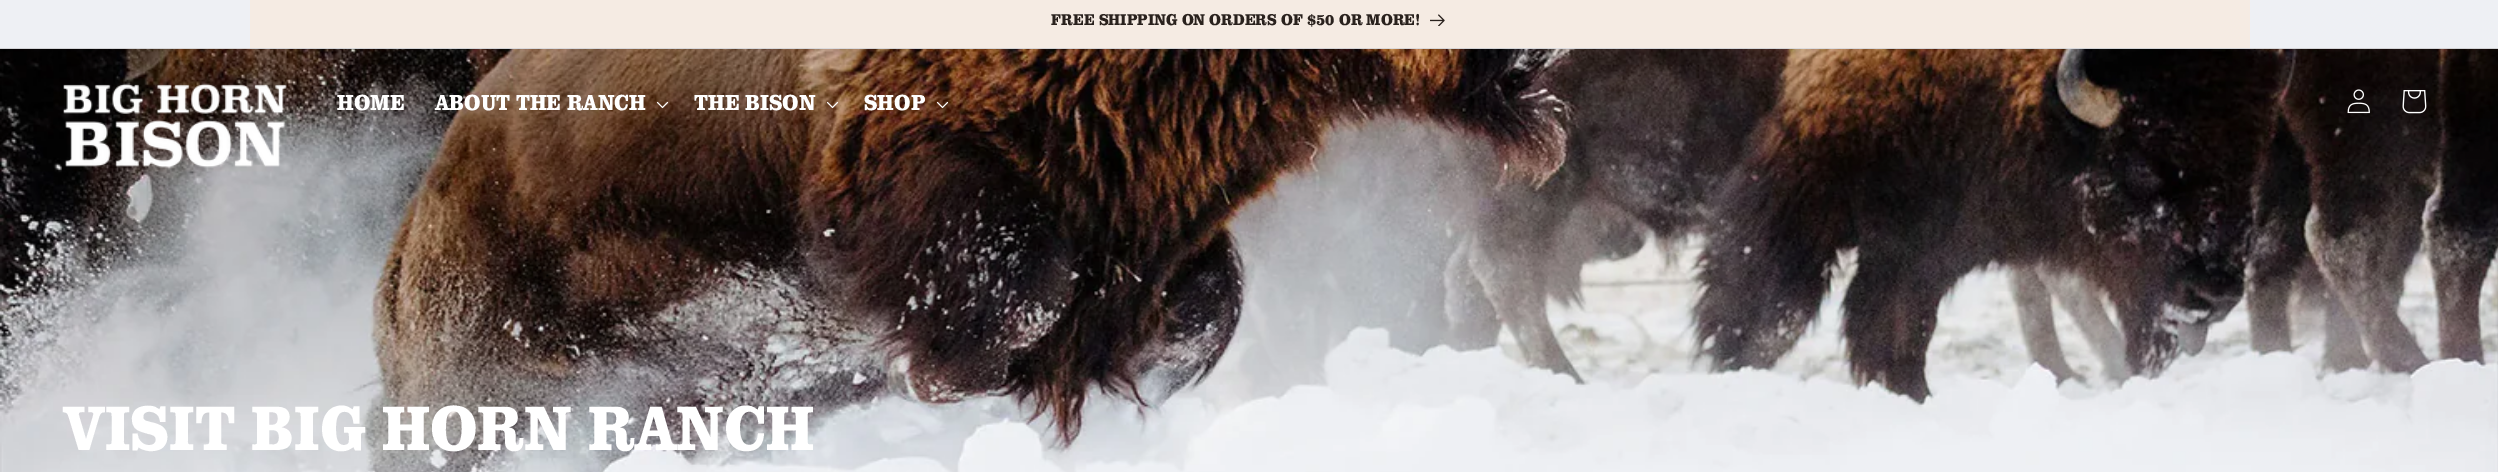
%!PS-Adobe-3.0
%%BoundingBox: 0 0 2498 472
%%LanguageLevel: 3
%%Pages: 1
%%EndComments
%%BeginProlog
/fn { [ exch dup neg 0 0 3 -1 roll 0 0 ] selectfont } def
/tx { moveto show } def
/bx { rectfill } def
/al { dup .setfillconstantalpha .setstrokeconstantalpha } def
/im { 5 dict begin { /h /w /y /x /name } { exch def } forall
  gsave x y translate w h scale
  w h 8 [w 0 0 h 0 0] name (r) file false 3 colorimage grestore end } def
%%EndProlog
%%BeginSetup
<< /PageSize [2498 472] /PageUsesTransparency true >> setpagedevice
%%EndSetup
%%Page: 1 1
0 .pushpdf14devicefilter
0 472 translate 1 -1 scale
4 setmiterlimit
0.933 0.941 0.957 setrgbcolor
0 0 2498 472 bx
(image7.raw) 0 48 2498 424 im
0.08 al
0.161 0.129 0.114 setrgbcolor
0 48 2498 1 bx
1 al
0.961 0.922 0.89 setrgbcolor
250 0 2000 48 bx
/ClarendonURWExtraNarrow-Bold 16.25 fn
0.161 0.129 0.114 setrgbcolor
(FREE SHIPPING ON ORDERS OF $50 OR MORE!) 1051 25 tx
(image0.raw) 1430 14 15 12 im
(image1.raw) 63 83 224 85 im
/ClarendonURWExtraNarrow-Bold 22.5 fn
1 setgray
(HOME) 337 110 tx
(ABOUT THE RANCH) 435 110 tx
(image2.raw) 656 101 13 8 im
(THE BISON) 694 110 tx
(image3.raw) 826 101 13 8 im
(SHOP) 864 110 tx
(image4.raw) 936 101 13 8 im
(image5.raw) 2347 89 23 25 im
(image6.raw) 2402 90 25 24 im
/ClarendonURWExtraNarrow-Bold 65 fn
(VISIT BIG HORN RANCH) 63 450 tx
.poppdf14devicefilter showpage
%%EOF
